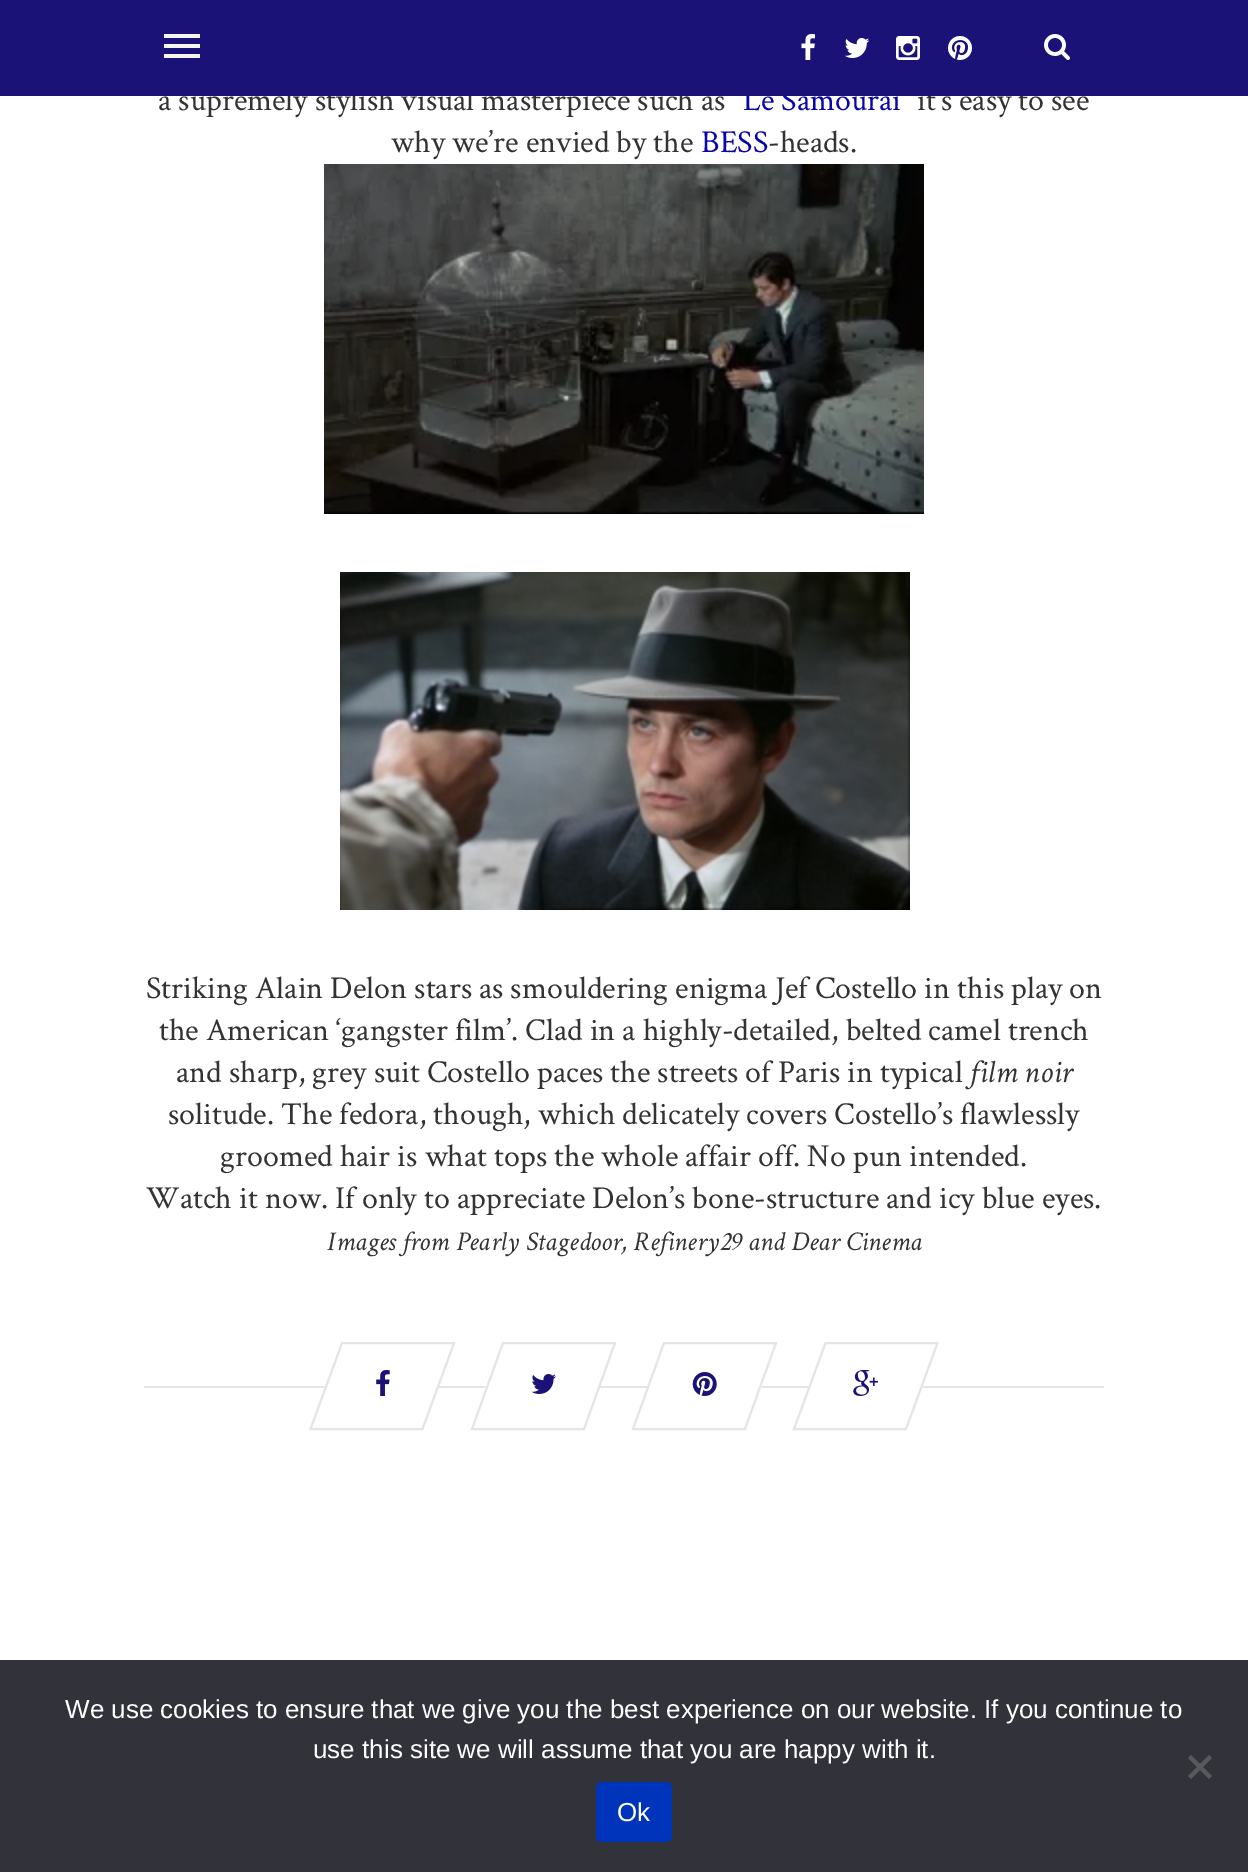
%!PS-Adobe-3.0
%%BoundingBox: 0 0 1248 1872
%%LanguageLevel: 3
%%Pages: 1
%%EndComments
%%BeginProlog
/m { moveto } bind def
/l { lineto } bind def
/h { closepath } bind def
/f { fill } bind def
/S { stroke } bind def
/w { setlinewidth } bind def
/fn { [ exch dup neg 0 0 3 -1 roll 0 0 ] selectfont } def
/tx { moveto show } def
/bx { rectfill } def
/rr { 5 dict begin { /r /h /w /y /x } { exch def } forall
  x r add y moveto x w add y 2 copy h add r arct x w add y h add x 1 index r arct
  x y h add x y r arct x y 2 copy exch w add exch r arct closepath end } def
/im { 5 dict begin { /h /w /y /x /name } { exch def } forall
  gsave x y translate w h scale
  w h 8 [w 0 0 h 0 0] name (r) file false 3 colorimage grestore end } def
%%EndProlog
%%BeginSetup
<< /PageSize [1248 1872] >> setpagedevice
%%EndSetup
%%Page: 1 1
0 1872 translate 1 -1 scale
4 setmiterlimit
1 setgray
0 0 1248 1872 bx
/CrimsonText-Regular 32 fn
0.2 setgray
(a supremely stylish visual masterpiece such as) 158 110 tx
0.035 0.024 0.667 setrgbcolor
(Le Samourai) 743 110 tx
0.2 setgray
(it’s easy to see) 917 110 tx
0.102 0.071 0.463 setrgbcolor
0 0 1248 96 bx
0.961 setgray
164 34 36 4 bx
164 44 36 4 bx
164 54 36 4 bx
(image0.raw) 801 34 14 26 im
(image1.raw) 844 38 26 20 im
(image2.raw) 896 36 24 24 im
(image3.raw) 948 36 24 24 im
(image4.raw) 1044 34 26 26 im
0.2 setgray
(why we’re envied by the) 391 152 tx
0.035 0.024 0.667 setrgbcolor
(BESS) 701 152 tx
0.2 setgray
(-heads.) 768 152 tx
(image5.raw) 324 164 600 350 im
(image6.raw) 340 572 570 338 im
(Striking Alain Delon stars as smouldering enigma Jef Costello in this play on) 146 998 tx
(the American ‘gangster film’. Clad in a highly-detailed, belted camel trench) 159 1040 tx
(and sharp, grey suit Costello paces the streets of Paris in typical) 176 1082 tx
/CrimsonText-Italic 32 fn
(film noir) 969 1082 tx
/CrimsonText-Regular 32 fn
(solitude. The fedora, though, which delicately covers Costello’s flawlessly) 168 1124 tx
(groomed hair is what tops the whole affair off. No pun intended.) 220 1166 tx
(Watch it now. If only to appreciate Delon’s bone-structure and icy blue eyes.) 146 1208 tx
/CrimsonText-Italic 27.2 fn
(Images from Pearly Stagedoor, Refinery29 and Dear Cinema) 327 1250 tx
0.898 setgray
144 1386 960 2 bx
1 setgray
341 1342 m 455 1342 l 423 1430 l 309 1430 l h f
0.898 setgray
2 w
342 1343 m 454 1343 l 422.5 1429 l 310.5 1429 l h S
(image7.raw) 376 1370 14 26 im
1 setgray
502 1342 m 616 1342 l 584 1430 l 470 1430 l h f
0.898 setgray
503 1343 m 615 1343 l 584 1429 l 472 1429 l h S
(image8.raw) 531 1374 25 20 im
1 setgray
664 1342 m 778 1342 l 746 1430 l 632 1430 l h f
0.898 setgray
664 1343 m 776 1343 l 745 1429 l 633 1429 l h S
(image9.raw) 692 1372 25 24 im
1 setgray
825 1342 m 939 1342 l 907 1430 l 793 1430 l h f
0.898 setgray
825.5 1343 m 937.5 1343 l 906 1429 l 794 1429 l h S
(image10.raw) 853 1370 25 26 im
0.196 0.196 0.227 setrgbcolor
0 1660 1248 212 bx
/LiberationSans-Regular 26 fn
1 setgray
(We use cookies to ensure that we give you the best experience on our website. If you continue to) 65 1718 tx
(use this site we will assume that you are happy with it.) 313 1758 tx
0.349 0.349 0.365 setrgbcolor
1209 1755 m 1212 1758 l 1191 1779 l 1188 1776 l h f
1188 1758 m 1191 1755 l 1212 1776 l 1209 1779 l h f
0 0.204 0.729 setrgbcolor
596 1782 76 60 6 rr f
1 setgray
(Ok) 617 1821 tx
showpage
%%EOF
